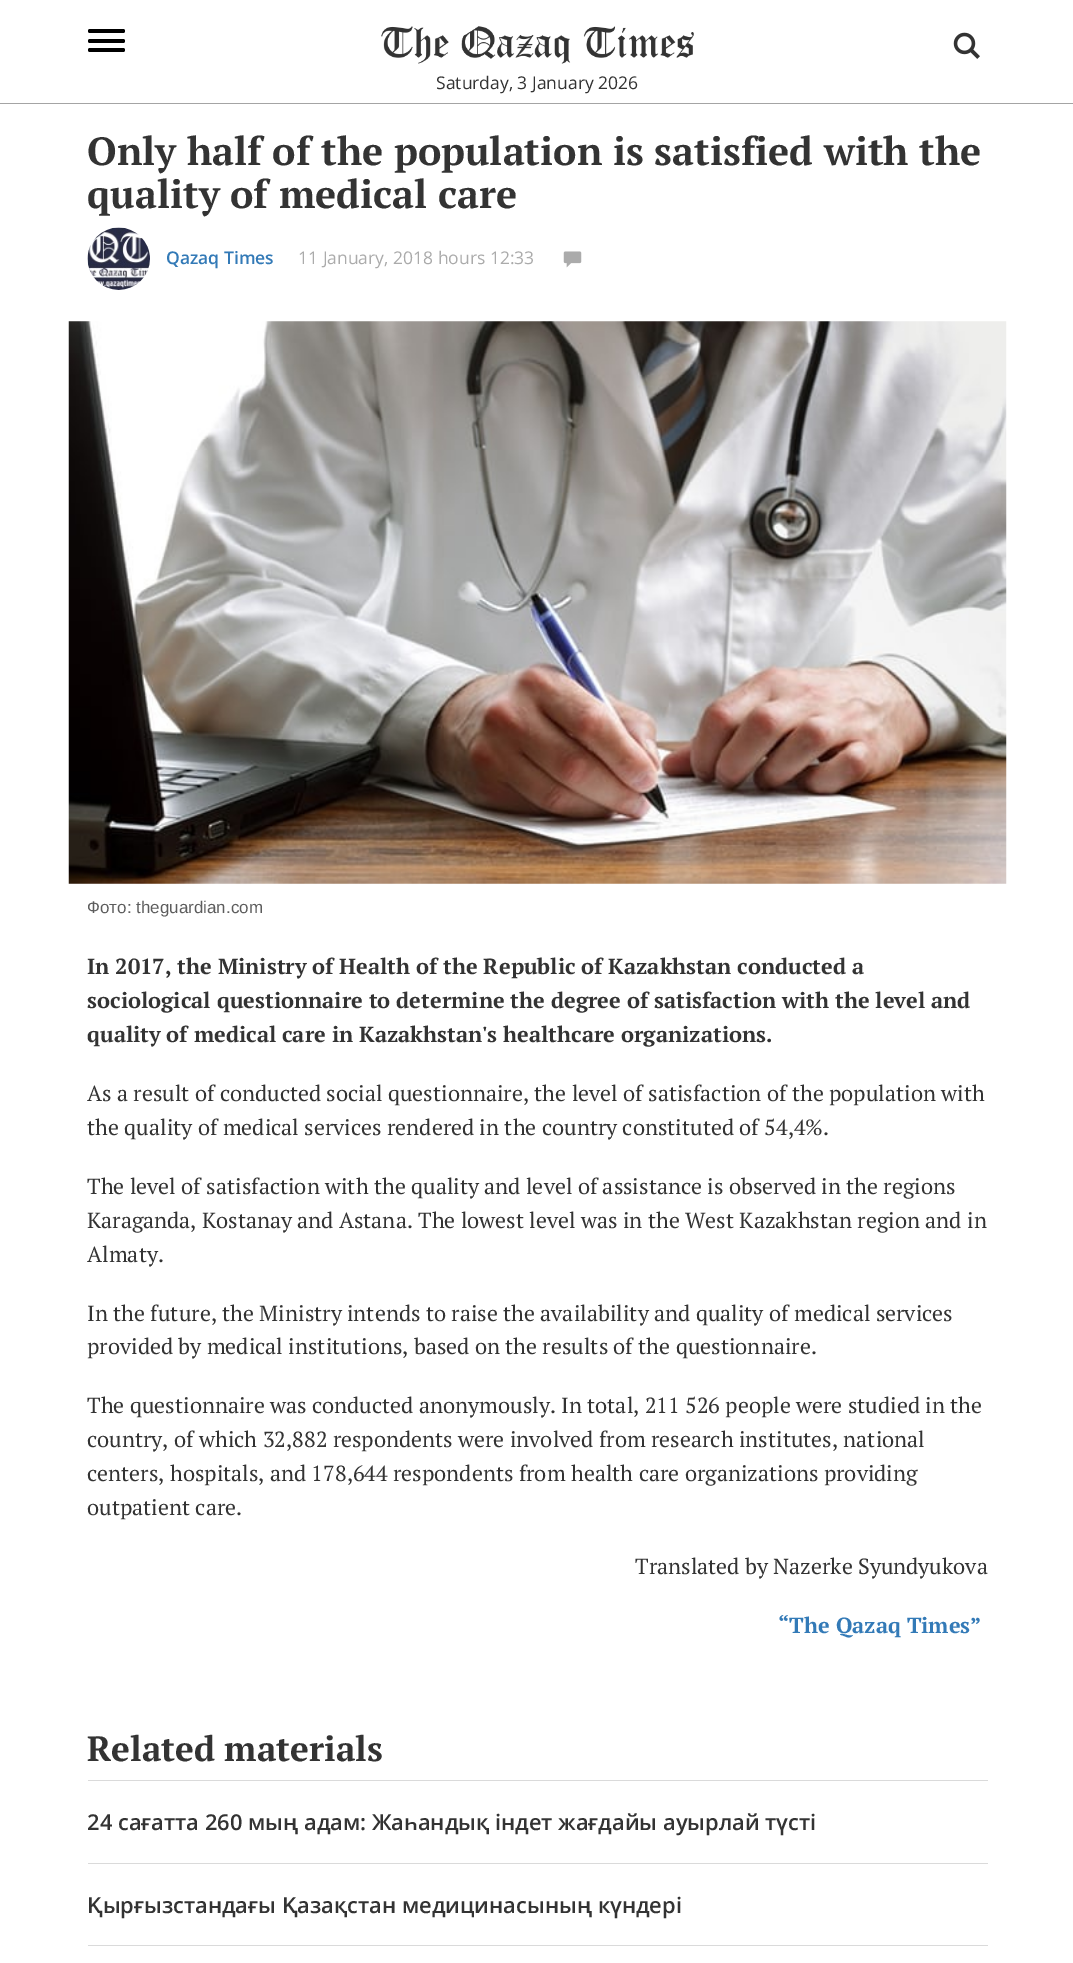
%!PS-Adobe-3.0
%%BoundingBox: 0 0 1073 1963
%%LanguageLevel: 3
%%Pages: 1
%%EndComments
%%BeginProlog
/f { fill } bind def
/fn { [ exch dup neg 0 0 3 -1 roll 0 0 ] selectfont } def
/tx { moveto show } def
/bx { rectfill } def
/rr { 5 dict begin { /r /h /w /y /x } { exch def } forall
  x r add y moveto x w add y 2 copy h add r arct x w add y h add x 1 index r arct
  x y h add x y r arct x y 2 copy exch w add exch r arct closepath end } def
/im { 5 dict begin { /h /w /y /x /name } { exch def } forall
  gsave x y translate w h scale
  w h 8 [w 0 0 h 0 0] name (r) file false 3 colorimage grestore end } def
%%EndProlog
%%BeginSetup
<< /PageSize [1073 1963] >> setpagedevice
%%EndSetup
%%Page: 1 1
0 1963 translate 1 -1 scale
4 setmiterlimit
1 setgray
0 0 1073 1963 bx
0.643 setgray
0 103 1073 1 bx
0 setgray
88 39 37 4 2 rr f
88 29 37 4 2 rr f
88 48 37 4 2 rr f
(image0.raw) 953 32 27 27 im
(image1.raw) 381 26 313 38 im
/OpenSans-Regular 17.5 fn
0.2 setgray
(Saturday, 3 January 2026) 436 89 tx
/PTSerif-Bold 39.4 fn
(Only half of the population is satisfied with the) 87 165 tx
(quality of medical care) 87 208 tx
(image2.raw) 87 227 63 63 im
/OpenSans-SemiBold 17.5 fn
0.2 0.478 0.718 setrgbcolor
(Qazaq Times) 166 264 tx
/OpenSans-Regular 17.5 fn
0.671 setgray
(11 January, 2018 hours 12:33) 298 264 tx
(image3.raw) 563 251 19 17 im
(image4.raw) 68 321 939 563 im
/LiberationSans-Regular 17 fn
0.365 setgray
(Фото: theguardian.com) 87 913 tx
/PTSerif-Bold 21.9 fn
0.2 setgray
(In 2017, the Ministry of Health of the Republic of Kazakhstan conducted a) 87 974 tx
(sociological questionnaire to determine the degree of satisfaction with the level and) 87 1008 tx
(quality of medical care in Kazakhstan's healthcare organizations.) 87 1042 tx
/PTSerif-Regular 21.9 fn
(As a result of conducted social questionnaire, the level of satisfaction of the population with) 87 1101 tx
(the quality of medical services rendered in the country constituted of 54,4%.) 87 1135 tx
(The level of satisfaction with the quality and level of assistance is observed in the regions) 87 1194 tx
(Karaganda, Kostanay and Astana. The lowest level was in the West Kazakhstan region and in) 87 1228 tx
(Almaty.) 87 1262 tx
(In the future, the Ministry intends to raise the availability and quality of medical services) 87 1321 tx
(provided by medical institutions, based on the results of the questionnaire.) 87 1354 tx
(The questionnaire was conducted anonymously. In total, 211 526 people were studied in the) 87 1413 tx
(country, of which 32,882 respondents were involved from research institutes, national) 87 1447 tx
(centers, hospitals, and 178,644 respondents from health care organizations providing) 87 1481 tx
(outpatient care.) 87 1515 tx
(Translated by Nazerke Syundyukova) 635 1574 tx
/PTSerif-Bold 21.9 fn
0.2 0.478 0.718 setrgbcolor
(“The Qazaq Times”) 778 1633 tx
0.855 setgray
88 1780 900 1 bx
/PTSerif-Bold 35 fn
0.2 setgray
(Related materials) 87 1761 tx
0.855 setgray
88 1863 900 1 bx
/OpenSans-SemiBold 21.9 fn
0.2 setgray
(24 сағатта 260 мың адам: Жаһандық індет жағдайы ауырлай түсті) 87 1830 tx
0.855 setgray
88 1945 900 1 bx
0.2 setgray
(Қырғызстандағы Қазақстан медицинасының күндері) 87 1913 tx
showpage
%%EOF
